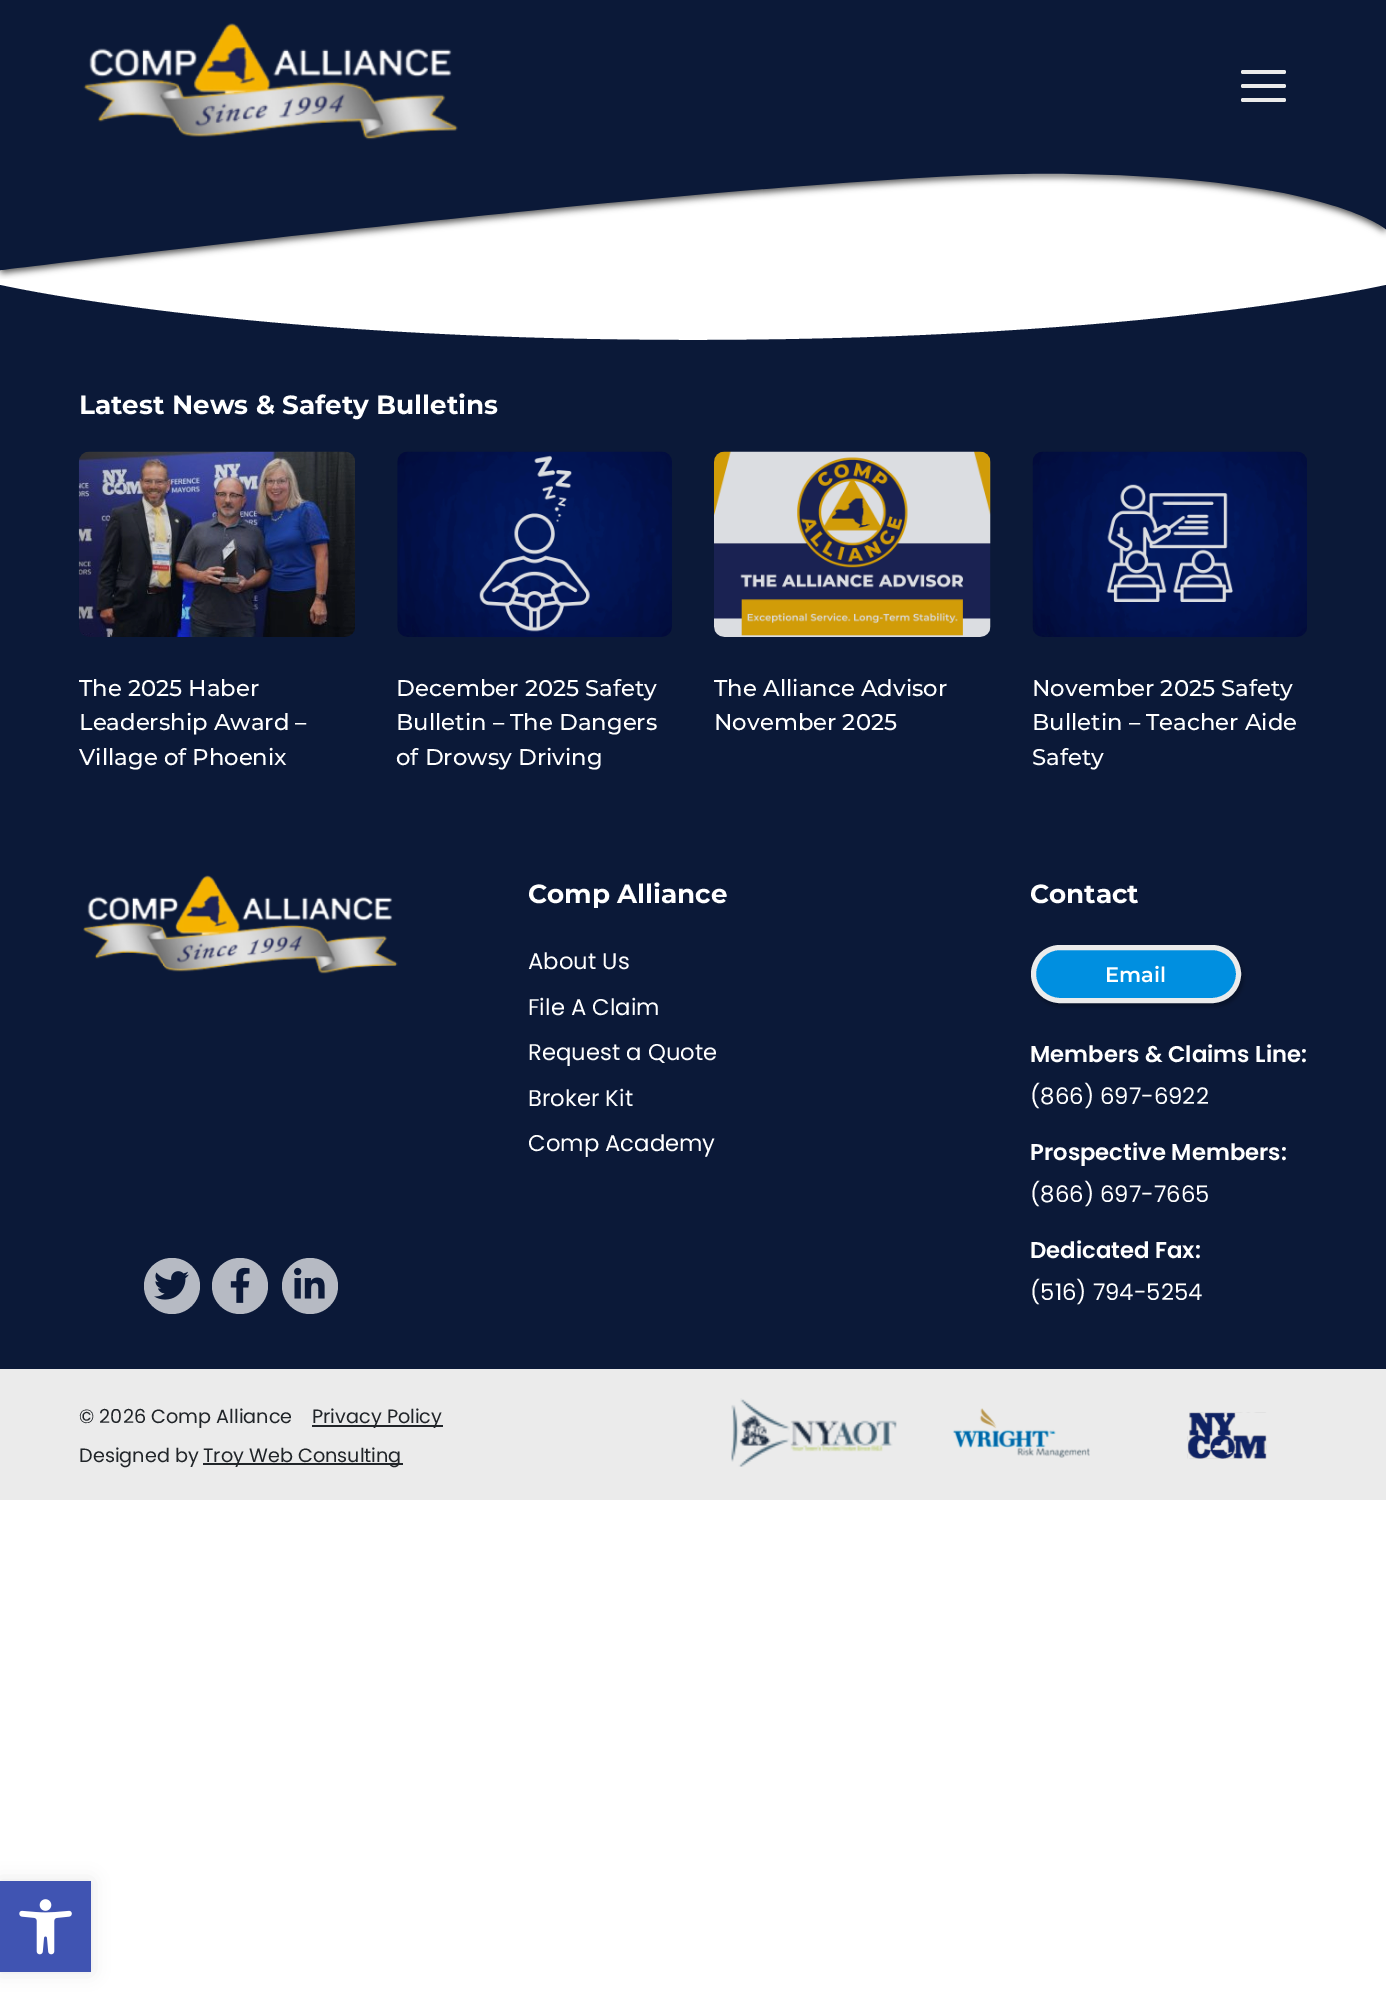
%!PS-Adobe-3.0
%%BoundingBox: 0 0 1386 2006
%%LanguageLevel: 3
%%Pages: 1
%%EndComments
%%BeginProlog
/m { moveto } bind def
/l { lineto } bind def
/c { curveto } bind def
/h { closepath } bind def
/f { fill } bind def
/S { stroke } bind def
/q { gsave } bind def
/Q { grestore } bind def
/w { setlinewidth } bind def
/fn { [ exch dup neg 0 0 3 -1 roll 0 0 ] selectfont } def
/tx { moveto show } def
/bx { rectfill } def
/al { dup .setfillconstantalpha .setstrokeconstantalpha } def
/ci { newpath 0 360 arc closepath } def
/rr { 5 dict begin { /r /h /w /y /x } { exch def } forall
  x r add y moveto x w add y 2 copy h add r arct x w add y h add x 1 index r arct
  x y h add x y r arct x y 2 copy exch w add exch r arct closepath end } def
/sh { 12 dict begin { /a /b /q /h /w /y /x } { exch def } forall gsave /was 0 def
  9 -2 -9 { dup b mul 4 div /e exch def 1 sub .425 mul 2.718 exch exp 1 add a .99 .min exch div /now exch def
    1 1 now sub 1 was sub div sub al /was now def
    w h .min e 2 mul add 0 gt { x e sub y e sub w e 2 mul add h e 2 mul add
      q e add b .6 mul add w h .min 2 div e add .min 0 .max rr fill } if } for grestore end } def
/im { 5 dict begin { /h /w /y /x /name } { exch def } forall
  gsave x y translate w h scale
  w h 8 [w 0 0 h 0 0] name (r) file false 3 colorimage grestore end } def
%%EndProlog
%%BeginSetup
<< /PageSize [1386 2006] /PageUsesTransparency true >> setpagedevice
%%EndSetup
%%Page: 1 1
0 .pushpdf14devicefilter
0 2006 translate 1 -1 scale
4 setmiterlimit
1 setgray
0 0 1386 2006 bx
0.043 0.098 0.22 setrgbcolor
0 0 1386 170 bx
(image0.raw) 83 23 375 117 im
0.922 setgray
1241 70 45 4 2 rr f
1241 84 45 4 2 rr f
1241 98 45 4 2 rr f
(image1.raw) 0 170 1386 109 im
0.043 0.098 0.22 setrgbcolor
0 285 m 0 285 239 340 689 340 c 697 340 l 1147 340 1386 285 1386 285 c 1386 346 l 0 346 l h f
0 346 1386 1023 bx
/Montserrat-Bold 26.25 fn
1 setgray
(Latest News & Safety Bulletins) 79 414 tx
(image2.raw) 78 451 277 186 im
/Montserrat-Medium 22.75 fn
(The 2025 Haber) 79 696 tx
(Leadership Award –) 79 730 tx
(Village of Phoenix) 79 765 tx
(image3.raw) 397 451 275 186 im
(December 2025 Safety) 396 696 tx
(Bulletin – The Dangers) 396 730 tx
(of Drowsy Driving) 396 765 tx
(image4.raw) 714 451 277 186 im
(The Alliance Advisor) 714 696 tx
(November 2025) 714 730 tx
(image5.raw) 1032 451 275 186 im
(November 2025 Safety) 1032 696 tx
(Bulletin – Teacher Aide) 1032 730 tx
(Safety) 1032 765 tx
(image6.raw) 83 875 315 99 im
0.714 0.729 0.765 setrgbcolor
172 1286 28 ci f
(image7.raw) 154 1271 35 29 im
240 1286 28 ci f
(image8.raw) 230 1267 20 36 im
310 1286 28 ci f
(image9.raw) 294 1267 31 32 im
/Montserrat-Bold 26.25 fn
1 setgray
(Comp Alliance) 528 903 tx
/Poppins-Regular 22.75 fn
(About Us) 528 969 tx
(File A Claim) 528 1015 tx
(Request a Quote) 528 1060 tx
(Broker Kit) 528 1106 tx
(Comp Academy) 528 1151 tx
/Montserrat-Bold 26.25 fn
(Contact) 1030 903 tx
0 setgray
1033 949 210 57 28.5 2.5 0.3 sh
0 0.561 0.878 setrgbcolor
1033.5 947.5 205 53 26.5 rr q f Q
0.922 setgray
5 w
S
/Montserrat-SemiBold 21 fn
1 setgray
(Email) 1105 982 tx
/Poppins-SemiBold 22.75 fn
(Members & Claims Line:) 1030 1062 tx
/Poppins-Regular 22.75 fn
(\(866\) 697-6922) 1030 1104 tx
/Poppins-SemiBold 22.75 fn
(Prospective Members:) 1030 1160 tx
/Poppins-Regular 22.75 fn
(\(866\) 697-7665) 1030 1202 tx
/Poppins-SemiBold 22.75 fn
(Dedicated Fax:) 1030 1258 tx
/Poppins-Regular 22.75 fn
(\(516\) 794-5254) 1030 1300 tx
0.922 setgray
0 1369 1386 131 bx
/Poppins-Regular 19.25 fn
0.129 0.145 0.161 setrgbcolor
(© 2026 Comp Alliance) 79 1423 tx
312 1425 131 2 bx
(Privacy Policy) 312 1423 tx
(Designed by) 79 1462 tx
203 1463 200 2 bx
(Troy Web Consulting) 203 1462 tx
(image10.raw) 731 1398 166 69 im
(image11.raw) 952 1408 138 50 im
(image12.raw) 1187 1412 80 47 im
0 setgray
0 1881 91 91 0 9 0.1 sh
0.251 0.329 0.698 setrgbcolor
0 1881 91 91 bx
(image13.raw) 19 1899 53 56 im
.poppdf14devicefilter showpage
%%EOF
